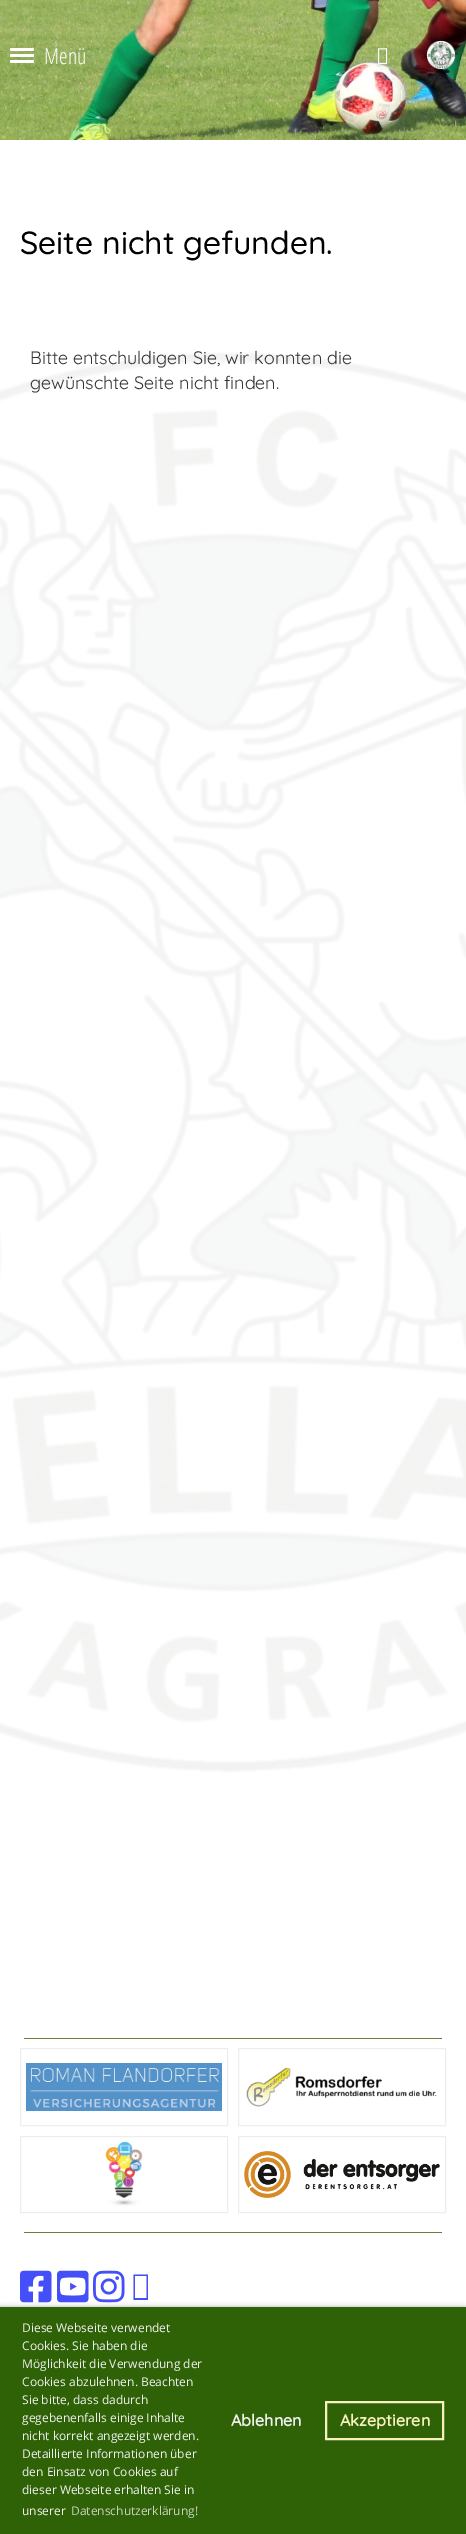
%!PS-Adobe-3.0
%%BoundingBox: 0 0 466 2534
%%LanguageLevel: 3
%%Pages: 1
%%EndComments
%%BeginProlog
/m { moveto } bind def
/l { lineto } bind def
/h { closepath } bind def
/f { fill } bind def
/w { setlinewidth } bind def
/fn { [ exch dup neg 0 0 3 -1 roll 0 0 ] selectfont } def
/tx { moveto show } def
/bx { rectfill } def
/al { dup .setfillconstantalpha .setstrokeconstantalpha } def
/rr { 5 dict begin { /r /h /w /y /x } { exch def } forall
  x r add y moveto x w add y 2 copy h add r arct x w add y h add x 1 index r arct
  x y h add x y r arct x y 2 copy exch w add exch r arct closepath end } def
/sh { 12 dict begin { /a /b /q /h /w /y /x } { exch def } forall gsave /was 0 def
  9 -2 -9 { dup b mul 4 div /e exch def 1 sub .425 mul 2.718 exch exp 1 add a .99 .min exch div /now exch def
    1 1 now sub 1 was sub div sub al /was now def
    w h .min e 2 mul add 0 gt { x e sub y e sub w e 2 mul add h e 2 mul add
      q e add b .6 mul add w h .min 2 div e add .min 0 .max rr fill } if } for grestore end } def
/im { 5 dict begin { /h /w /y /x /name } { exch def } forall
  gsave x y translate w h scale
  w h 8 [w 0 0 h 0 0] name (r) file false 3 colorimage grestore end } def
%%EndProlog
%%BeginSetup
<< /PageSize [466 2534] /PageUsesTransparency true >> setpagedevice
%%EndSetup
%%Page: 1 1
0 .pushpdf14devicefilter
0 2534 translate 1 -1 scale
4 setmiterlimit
1 setgray
0 0 466 2534 bx
(image2.raw) 0 0 466 140 im
10 48 24 3 1.5 rr f
10 54 24 3 1.5 rr f
10 60 24 3 1.5 rr f
/OpenSansCondensed-Light 22 fn
(Menü) 44 64 tx
(image0.raw) 378 48 10 16 im
(image1.raw) 426 40 30 30 im
/Quicksand-Light 32 fn
0 setgray
(Seite nicht gefunden.) 20 254 tx
(image3.raw) 0 351 466 1423 im
/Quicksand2-Light 18 fn
0.2 setgray
(Bitte entschuldigen Sie, wir konnten die) 30 364 tx
(gewünschte Seite nicht finden.) 30 389 tx
0.439 0.478 0.208 setrgbcolor
24 2038 418 1 bx
0.933 setgray
20.5 2048.5 207 77 rectstroke
(image4.raw) 26 2063 196 48 im
238.5 2048.5 207 77 rectstroke
(image5.raw) 246 2067 191 40 im
20.5 2136.5 207 76 rectstroke
(image6.raw) 105 2142 38 64 im
238.5 2136.5 207 76 rectstroke
(image7.raw) 244 2151 196 47 im
0.439 0.478 0.208 setrgbcolor
24 2232 418 1 bx
(image8.raw) 20 2270 32 33 im
(image9.raw) 57 2270 32 33 im
(image10.raw) 93 2270 32 33 im
0.267 0.31 0.973 setrgbcolor
133.5 2300 m 133.5 2274.5 l 148 2274.5 l 148 2300 l h 135 2298 m 146.5 2298 l 146.5 2276 l 135 2276 l h f
0 setgray
0 2307 466 227 0 2.5 0.3 sh
0.184 0.384 0.027 setrgbcolor
0 2307 466 227 bx
/OpenSans-Regular 12 fn
0.933 0.941 0.929 setrgbcolor
(Diese Webseite verwendet) 22 2332 tx
(Cookies. Sie haben die) 22 2350 tx
(Möglichkeit die Verwendung der) 22 2368 tx
(Cookies abzulehnen. Beachten) 22 2386 tx
(Sie bitte, dass dadurch) 22 2404 tx
(gegebenenfalls einige Inhalte) 22 2422 tx
(nicht korrekt angezeigt werden.) 22 2440 tx
(Detaillierte Informationen über) 22 2458 tx
(den Einsatz von Cookies auf) 22 2476 tx
(dieser Webseite erhalten Sie in) 22 2494 tx
(unserer) 22 2515 tx
0.784 0.827 0.749 setrgbcolor
(Datenschutzerklärung!) 71 2515 tx
/Quicksand-Bold 16.25 fn
0.933 0.941 0.929 setrgbcolor
(Ablehnen) 231 2426 tx
0.969 0.945 0.741 setrgbcolor
2 w
326 2402 117 37 rectstroke
(Akzeptieren) 340 2426 tx
.poppdf14devicefilter showpage
%%EOF
